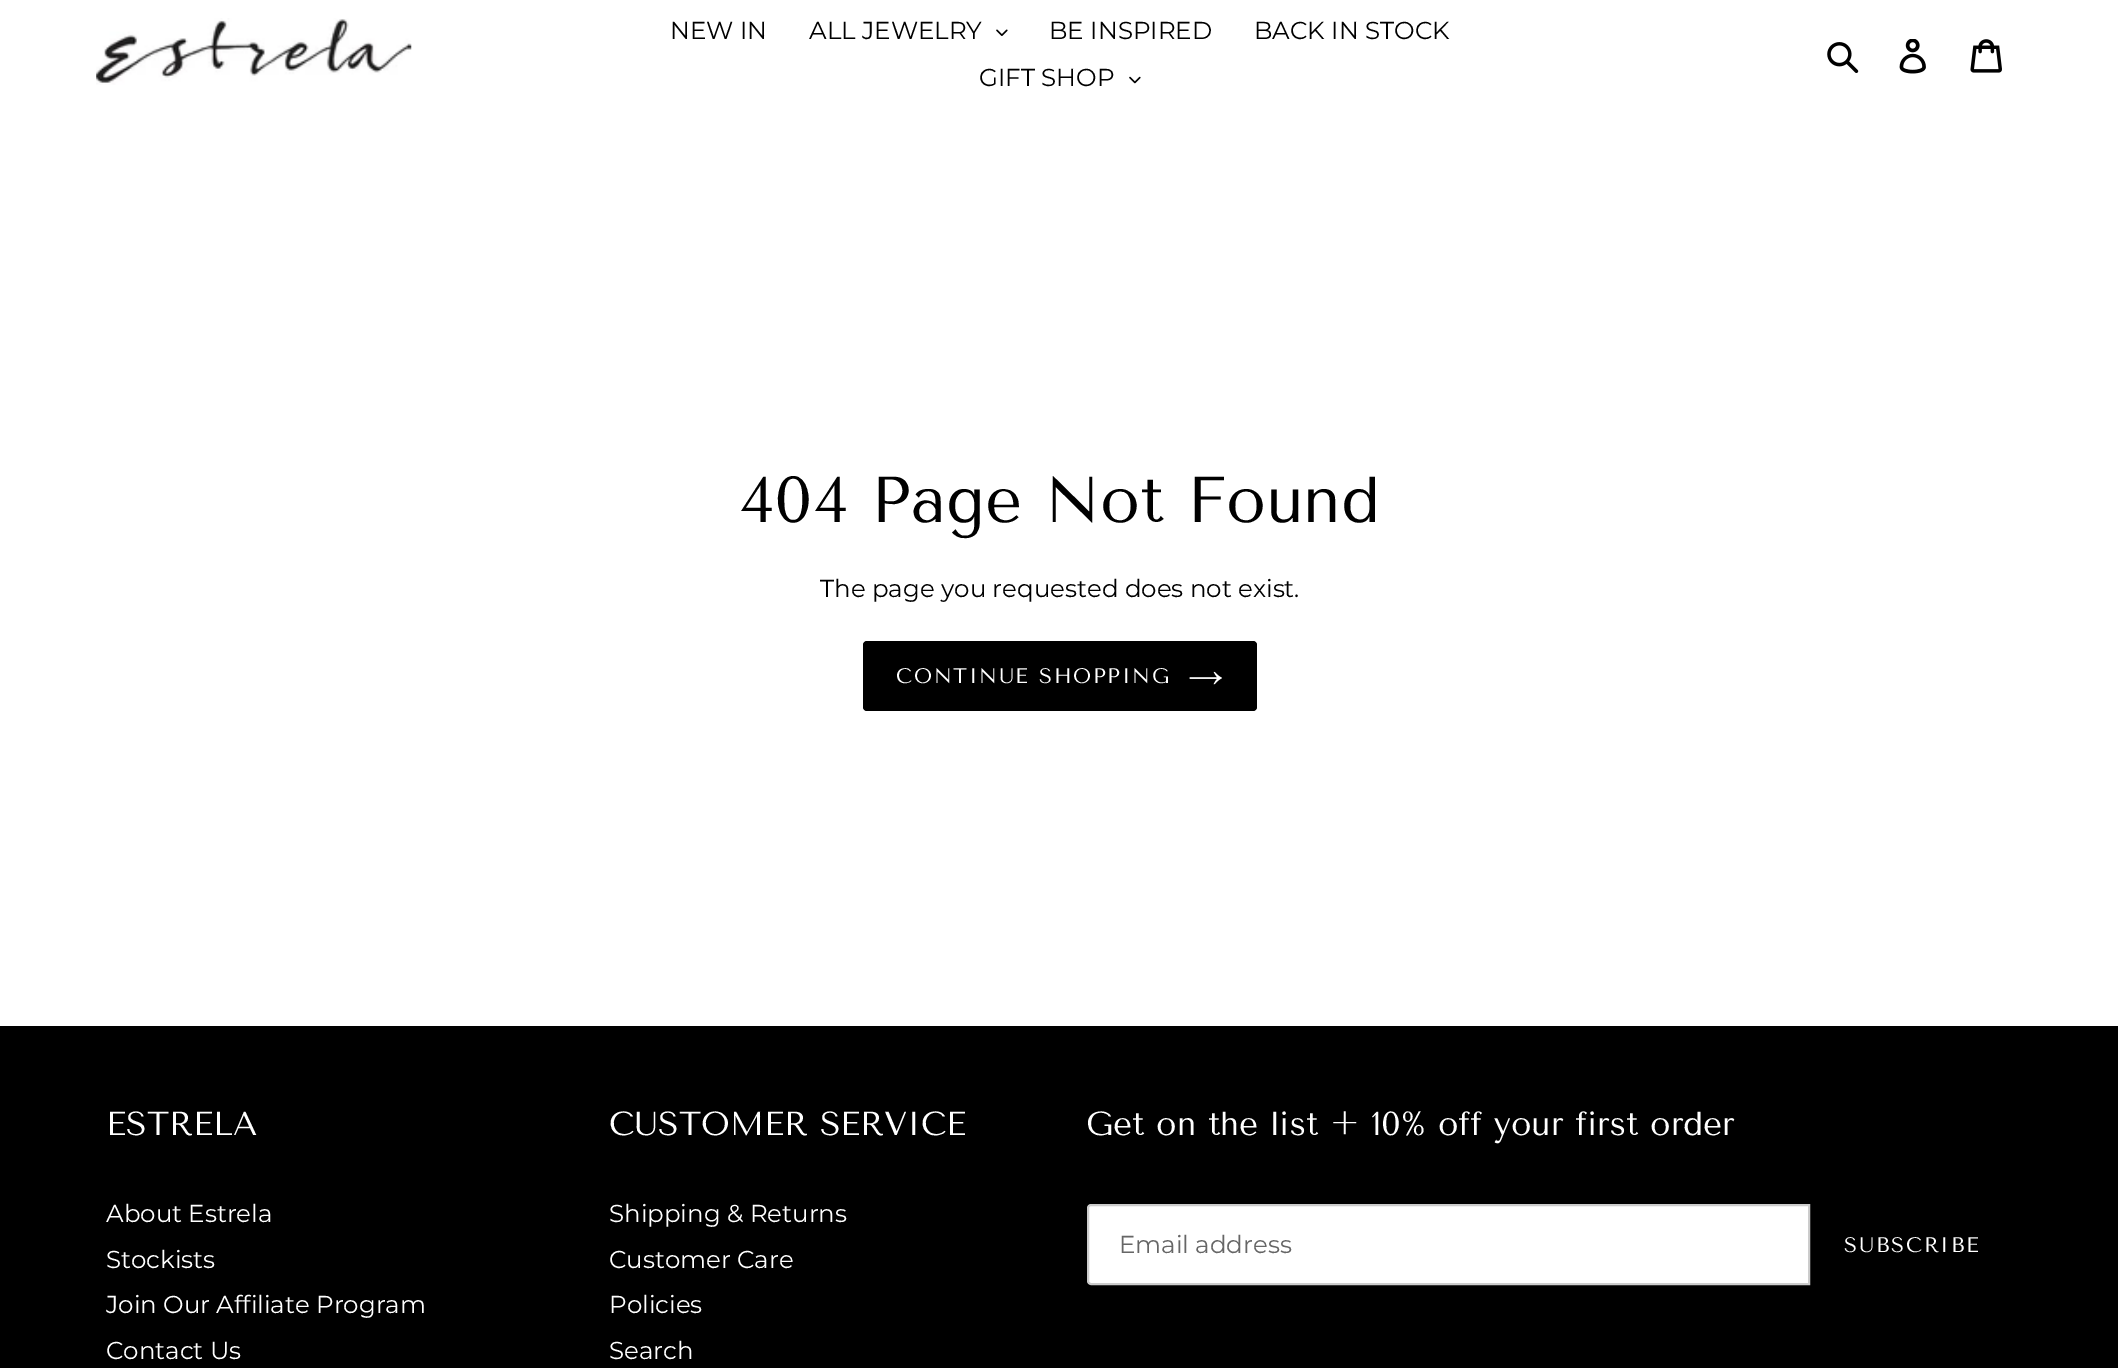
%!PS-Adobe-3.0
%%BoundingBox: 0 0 2118 1368
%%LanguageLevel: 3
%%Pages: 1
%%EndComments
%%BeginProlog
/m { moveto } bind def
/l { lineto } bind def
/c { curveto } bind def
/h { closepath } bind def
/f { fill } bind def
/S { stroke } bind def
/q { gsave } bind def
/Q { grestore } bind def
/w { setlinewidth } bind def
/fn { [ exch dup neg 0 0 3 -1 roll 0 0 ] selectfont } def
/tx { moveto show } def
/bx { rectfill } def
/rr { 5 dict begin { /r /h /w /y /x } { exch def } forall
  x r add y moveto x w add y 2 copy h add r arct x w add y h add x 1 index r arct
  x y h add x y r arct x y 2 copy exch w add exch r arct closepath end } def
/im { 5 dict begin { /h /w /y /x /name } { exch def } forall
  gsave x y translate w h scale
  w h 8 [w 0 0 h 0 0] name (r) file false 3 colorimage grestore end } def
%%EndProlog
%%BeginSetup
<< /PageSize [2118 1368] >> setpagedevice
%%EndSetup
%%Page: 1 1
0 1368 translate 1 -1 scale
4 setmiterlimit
1 setgray
0 0 2118 1368 bx
(image0.raw) 96 18 316 67 im
/Montserrat-Regular 24.5 fn
0 setgray
(NEW IN) 670 39 tx
(ALL JEWELRY) 809 39 tx
(image1.raw) 996 29 12 7 im
(BE INSPIRED) 1049 39 tx
(BACK IN STOCK) 1254 39 tx
(GIFT SHOP) 979 86 tx
(image2.raw) 1129 76 12 8 im
(image3.raw) 1827 42 32 31 im
(image4.raw) 1899 39 27 35 im
(image5.raw) 1970 39 32 34 im
/TenorSans-Regular 64.75 fn
(404 Page Not Found) 739 522 tx
/Montserrat-Regular 24.5 fn
(The page you requested does not exist.) 820 597 tx
863 641 394 70 4 rr f
/TenorSans-Regular 21 fn
1 setgray
896 683 m 1.7 0 (CONTINUE SHOPPING) ashow
(image6.raw) 1189 671 33 14 im
0 setgray
0 1026 2118 342 bx
/TenorSans-Regular 33.25 fn
1 setgray
(ESTRELA) 106 1135 tx
/Montserrat-Regular 24.5 fn
(About Estrela) 106 1222 tx
(Stockists) 106 1268 tx
(Join Our Affiliate Program) 106 1313 tx
(Contact Us) 106 1359 tx
/TenorSans-Regular 33.25 fn
(CUSTOMER SERVICE) 609 1135 tx
/Montserrat-Regular 24.5 fn
(Shipping & Returns) 609 1222 tx
(Customer Care) 609 1268 tx
(Policies) 609 1313 tx
(Search) 609 1359 tx
/TenorSans-Regular 33.25 fn
(Get on the list + 10% off your first order) 1086 1135 tx
1091 1205 m 1809 1205 l 1809 1284 l 1091 1284 l 1089.5 1284 1088 1282.5 1088 1281 c 1088 1208 l 1088 1206.5 1089.5 1205 1091 1205 c h q f Q
0.8 setgray
2 w
S
/Montserrat-Regular 24.5 fn
0.4 setgray
(Email address) 1119 1253 tx
/TenorSans-Regular 21 fn
1 setgray
1844 1252 m 1.7 0 (SUBSCRIBE) ashow
showpage
%%EOF
